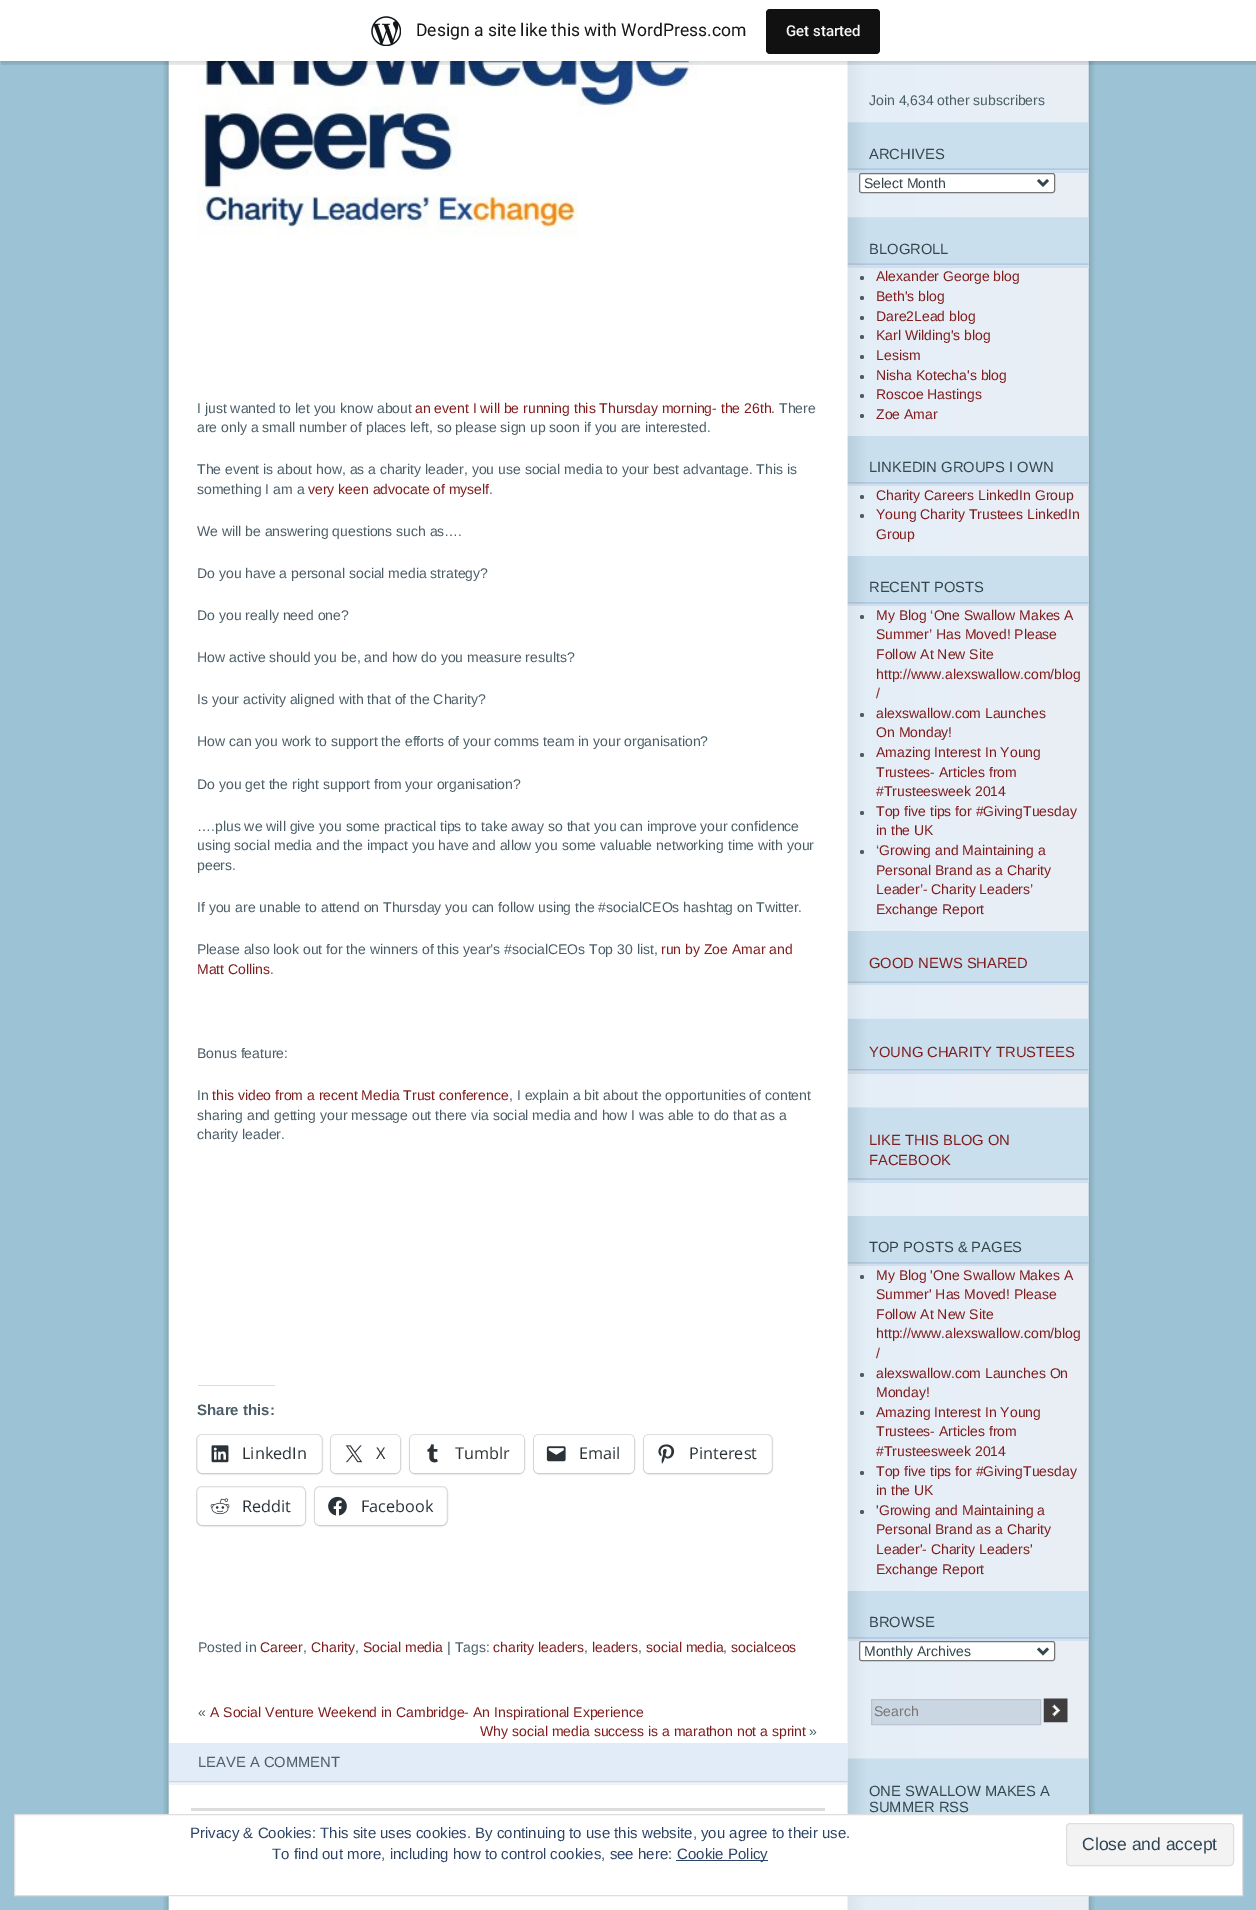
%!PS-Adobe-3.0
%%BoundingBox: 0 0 1256 1910
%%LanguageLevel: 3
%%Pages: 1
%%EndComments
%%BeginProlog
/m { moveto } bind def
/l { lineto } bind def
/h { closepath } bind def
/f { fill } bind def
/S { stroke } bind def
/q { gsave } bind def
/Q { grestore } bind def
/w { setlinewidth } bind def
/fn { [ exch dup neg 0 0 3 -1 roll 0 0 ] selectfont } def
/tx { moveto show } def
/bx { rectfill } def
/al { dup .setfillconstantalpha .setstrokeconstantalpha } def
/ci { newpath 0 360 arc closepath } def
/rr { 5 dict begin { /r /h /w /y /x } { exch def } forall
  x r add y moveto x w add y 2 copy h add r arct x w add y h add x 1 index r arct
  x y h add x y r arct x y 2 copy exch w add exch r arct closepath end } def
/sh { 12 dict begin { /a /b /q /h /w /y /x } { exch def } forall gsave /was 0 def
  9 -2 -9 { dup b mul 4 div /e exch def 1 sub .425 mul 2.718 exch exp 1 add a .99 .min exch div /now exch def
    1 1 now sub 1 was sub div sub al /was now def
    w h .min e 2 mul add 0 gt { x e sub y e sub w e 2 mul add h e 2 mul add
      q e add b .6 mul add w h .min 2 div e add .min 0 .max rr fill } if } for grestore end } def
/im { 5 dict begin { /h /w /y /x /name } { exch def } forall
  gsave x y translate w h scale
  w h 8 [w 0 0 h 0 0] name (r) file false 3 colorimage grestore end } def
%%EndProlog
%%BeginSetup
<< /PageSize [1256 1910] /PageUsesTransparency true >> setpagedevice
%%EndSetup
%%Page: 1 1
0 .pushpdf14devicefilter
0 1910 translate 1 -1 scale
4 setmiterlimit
0.608 0.765 0.835 setrgbcolor
0 0 1256 1910 bx
(image1.raw) 163 61 932 1849 im
(image2.raw) 197 61 501 176 im
0 setgray
0 1 1256 62 0 1 0.05 sh
0.08 al
1 61 m 1 65 l 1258 65 l 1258 4 l 1256 4 l 1256 61 l h f
1 al
1 setgray
0 0 1256 61 bx
(image0.raw) 371 16 30 30 im
/Roboto-Regular 17.5 fn
0.09 setgray
(Design a site like this with WordPress.com) 416 36 tx
0.067 setgray
766 9 114 45 4 rr f
/Roboto-Medium 15 fn
0.965 0.969 0.969 setrgbcolor
(Get started) 786 36 tx
/LiberationSans-Regular 14 fn
0.294 0.365 0.404 setrgbcolor
(I just wanted to let you know about) 197 413 tx
0.498 0.114 0.114 setrgbcolor
(an event I will be running this Thursday morning- the 26th.) 415 413 tx
0.294 0.365 0.404 setrgbcolor
(There) 779 413 tx
(are only a small number of places left, so please sign up soon if you are interested.) 197 432 tx
(The event is about how, as a charity leader, you use social media to your best advantage. This is) 197 474 tx
(something I am a) 197 494 tx
0.498 0.114 0.114 setrgbcolor
(very keen advocate of myself) 308 494 tx
0.294 0.365 0.404 setrgbcolor
(.) 489 494 tx
(We will be answering questions such as….) 197 536 tx
(Do you have a personal social media strategy?) 197 578 tx
(Do you really need one?) 197 620 tx
(How active should you be, and how do you measure results?) 197 662 tx
(Is your activity aligned with that of the Charity?) 197 704 tx
(How can you work to support the efforts of your comms team in your organisation?) 197 746 tx
(Do you get the right support from your organisation?) 197 789 tx
(….plus we will give you some practical tips to take away so that you can improve your confidence) 197 831 tx
(using social media and the impact you have and allow you some valuable networking time with your) 197 850 tx
(peers.) 197 870 tx
(If you are unable to attend on Thursday you can follow using the #socialCEOs hashtag on Twitter.) 197 912 tx
(Please also look out for the winners of this year’s #socialCEOs Top 30 list,) 197 954 tx
0.498 0.114 0.114 setrgbcolor
(run by Zoe Amar and) 661 954 tx
(Matt Collins) 197 974 tx
0.294 0.365 0.404 setrgbcolor
(.) 270 974 tx
(Bonus feature:) 197 1058 tx
(In) 197 1100 tx
0.498 0.114 0.114 setrgbcolor
(this video from a recent Media Trust conference) 212 1100 tx
0.294 0.365 0.404 setrgbcolor
(, I explain a bit about the opportunities of content) 509 1100 tx
(sharing and getting your message out there via social media and how I was able to do that as a) 197 1120 tx
(charity leader.) 197 1139 tx
0.863 0.863 0.871 setrgbcolor
198 1385 77 1 bx
/LiberationSans-Bold 15 fn
0.294 0.365 0.404 setrgbcolor
(Share this:) 197 1415 tx
0.878 setgray
196.5 1434.5 126 39 5.5 rr S
0 setgray
198 1436 123 38 5 1 0.12 sh
1 setgray
198 1435 123 38 5 rr f
(image3.raw) 211 1445 18 18 im
/OpenSans-Regular 16.25 fn
0.173 0.2 0.22 setrgbcolor
(LinkedIn) 242 1459 tx
0.878 setgray
330.5 1434.5 70 39 5.5 rr S
0 setgray
331 1436 69 38 5 1 0.12 sh
1 setgray
331 1435 69 38 5 rr f
(image4.raw) 345 1445 18 18 im
0.173 0.2 0.22 setrgbcolor
(X) 376 1459 tx
0.878 setgray
409.5 1434.5 115 39 5.5 rr S
0 setgray
410 1436 114 38 5 1 0.12 sh
1 setgray
410 1435 114 38 5 rr f
(image5.raw) 427 1444 11 19 im
0.173 0.2 0.22 setrgbcolor
(Tumblr) 455 1459 tx
0.878 setgray
533.5 1434.5 101 39 5.5 rr S
0 setgray
534 1436 100 38 5 1 0.12 sh
1 setgray
534 1435 100 38 5 rr f
(image6.raw) 546 1446 20 16 im
0.173 0.2 0.22 setrgbcolor
(Email) 579 1459 tx
0.878 setgray
643.5 1434.5 129 39 5.5 rr S
0 setgray
644 1436 127 38 5 1 0.12 sh
1 setgray
644 1435 127 38 5 rr f
(image7.raw) 658 1444 17 20 im
0.173 0.2 0.22 setrgbcolor
(Pinterest) 689 1459 tx
0.878 setgray
196.5 1486.5 109 39 5.5 rr S
0 setgray
198 1489 107 37 5 1 0.12 sh
1 setgray
198 1488 107 37 5 rr f
(image8.raw) 210 1498 20 17 im
0.173 0.2 0.22 setrgbcolor
(Reddit) 242 1512 tx
0.878 setgray
314.5 1486.5 133 39 5.5 rr S
0 setgray
315 1489 131 37 5 1 0.12 sh
1 setgray
315 1488 131 37 5 rr f
(image9.raw) 328 1496 19 20 im
0.173 0.2 0.22 setrgbcolor
(Facebook) 361 1512 tx
/LiberationSans-Regular 14 fn
0.294 0.365 0.404 setrgbcolor
(Posted in) 198 1652 tx
0.498 0.114 0.114 setrgbcolor
(Career) 260 1652 tx
0.294 0.365 0.404 setrgbcolor
(,) 303 1652 tx
0.498 0.114 0.114 setrgbcolor
(Charity) 311 1652 tx
0.294 0.365 0.404 setrgbcolor
(,) 355 1652 tx
0.498 0.114 0.114 setrgbcolor
(Social media) 363 1652 tx
0.294 0.365 0.404 setrgbcolor
(| Tags:) 447 1652 tx
0.498 0.114 0.114 setrgbcolor
(charity leaders) 493 1652 tx
0.294 0.365 0.404 setrgbcolor
(,) 584 1652 tx
0.498 0.114 0.114 setrgbcolor
(leaders) 592 1652 tx
0.294 0.365 0.404 setrgbcolor
(,) 638 1652 tx
0.498 0.114 0.114 setrgbcolor
(social media) 646 1652 tx
0.294 0.365 0.404 setrgbcolor
(,) 723 1652 tx
0.498 0.114 0.114 setrgbcolor
(socialceos) 731 1652 tx
0.294 0.365 0.404 setrgbcolor
(«) 198 1717 tx
0.498 0.114 0.114 setrgbcolor
(A Social Venture Weekend in Cambridge- An Inspirational Experience) 210 1717 tx
(Why social media success is a marathon not a sprint) 480 1736 tx
0.294 0.365 0.404 setrgbcolor
(») 809 1736 tx
0.886 0.922 0.973 setrgbcolor
169 1743 679 42 bx
(image10.raw) 168 1781 680 4 im
/LiberationSans-Regular 14.75 fn
0.294 0.365 0.404 setrgbcolor
(LEAVE A COMMENT) 198 1767 tx
0.863 0.863 0.871 setrgbcolor
191 1808 634 3 bx
/LiberationSans-Regular 14 fn
0.294 0.365 0.404 setrgbcolor
(Join 4,634 other subscribers) 869 105 tx
0.792 0.875 0.929 setrgbcolor
848 123 241 50 bx
(image11.raw) 847 122 242 50 im
/LiberationSans-Regular 14.75 fn
0.196 0.278 0.294 setrgbcolor
(ARCHIVES) 869 159 tx
1 setgray
859.5 173.5 195 19 2 rr q f Q
0.463 setgray
S
0.196 0.278 0.294 setrgbcolor
2.5 w
1038 180 m 1043 185 l 1048 180 l S
/LiberationSans-Regular 14 fn
(Select Month) 864 188 tx
0.792 0.875 0.929 setrgbcolor
848 218 241 50 bx
(image11.raw) 847 217 242 50 im
/LiberationSans-Regular 14.75 fn
0.196 0.278 0.294 setrgbcolor
(BLOGROLL) 869 254 tx
0.294 0.365 0.404 setrgbcolor
862 278 2 ci f
/LiberationSans-Regular 14 fn
0.498 0.114 0.114 setrgbcolor
(Alexander George blog) 876 281 tx
0.294 0.365 0.404 setrgbcolor
862 298 2 ci f
0.498 0.114 0.114 setrgbcolor
(Beth's blog) 876 301 tx
0.294 0.365 0.404 setrgbcolor
862 318 2 ci f
0.498 0.114 0.114 setrgbcolor
(Dare2Lead blog) 876 321 tx
0.294 0.365 0.404 setrgbcolor
862 337 2 ci f
0.498 0.114 0.114 setrgbcolor
(Karl Wilding's blog) 876 340 tx
0.294 0.365 0.404 setrgbcolor
862 357 2 ci f
0.498 0.114 0.114 setrgbcolor
(Lesism) 876 360 tx
0.294 0.365 0.404 setrgbcolor
862 377 2 ci f
0.498 0.114 0.114 setrgbcolor
(Nisha Kotecha's blog) 876 380 tx
0.294 0.365 0.404 setrgbcolor
862 396 2 ci f
0.498 0.114 0.114 setrgbcolor
(Roscoe Hastings) 876 399 tx
0.294 0.365 0.404 setrgbcolor
862 416 2 ci f
0.498 0.114 0.114 setrgbcolor
(Zoe Amar) 876 419 tx
(image12.raw) 847 436 242 50 im
/LiberationSans-Regular 14.75 fn
0.196 0.278 0.294 setrgbcolor
(LINKEDIN GROUPS I OWN) 869 472 tx
0.294 0.365 0.404 setrgbcolor
862 497 2 ci f
/LiberationSans-Regular 14 fn
0.498 0.114 0.114 setrgbcolor
(Charity Careers LinkedIn Group) 876 500 tx
0.294 0.365 0.404 setrgbcolor
862 516 2 ci f
0.498 0.114 0.114 setrgbcolor
(Young Charity Trustees LinkedIn) 876 519 tx
(Group) 876 539 tx
(image12.raw) 847 556 242 50 im
/LiberationSans-Regular 14.75 fn
0.196 0.278 0.294 setrgbcolor
(RECENT POSTS) 869 592 tx
0.294 0.365 0.404 setrgbcolor
862 617 2 ci f
/LiberationSans-Regular 14 fn
0.498 0.114 0.114 setrgbcolor
(My Blog ‘One Swallow Makes A) 876 620 tx
(Summer’ Has Moved! Please) 876 639 tx
(Follow At New Site) 876 659 tx
(http://www.alexswallow.com/blog) 876 679 tx
(/) 876 698 tx
0.294 0.365 0.404 setrgbcolor
862 715 2 ci f
0.498 0.114 0.114 setrgbcolor
(alexswallow.com Launches) 876 718 tx
(On Monday!) 876 737 tx
0.294 0.365 0.404 setrgbcolor
862 755 2 ci f
0.498 0.114 0.114 setrgbcolor
(Amazing Interest In Young) 876 757 tx
(Trustees- Articles from) 876 777 tx
(#Trusteesweek 2014) 876 796 tx
0.294 0.365 0.404 setrgbcolor
862 813 2 ci f
0.498 0.114 0.114 setrgbcolor
(Top five tips for #GivingTuesday) 876 816 tx
(in the UK) 876 835 tx
0.294 0.365 0.404 setrgbcolor
862 852 2 ci f
0.498 0.114 0.114 setrgbcolor
(‘Growing and Maintaining a) 876 855 tx
(Personal Brand as a Charity) 876 875 tx
(Leader’- Charity Leaders’) 876 894 tx
(Exchange Report) 876 914 tx
0.792 0.875 0.929 setrgbcolor
848 931 241 54 bx
(image13.raw) 847 931 242 54 im
/LiberationSans-Regular 14.75 fn
0.498 0.114 0.114 setrgbcolor
(GOOD NEWS SHARED) 869 968 tx
0.792 0.875 0.929 setrgbcolor
848 1019 241 55 bx
(image14.raw) 847 1018 242 56 im
0.498 0.114 0.114 setrgbcolor
(YOUNG CHARITY TRUSTEES) 869 1057 tx
0.792 0.875 0.929 setrgbcolor
848 1108 241 75 bx
(image15.raw) 847 1107 242 75 im
0.498 0.114 0.114 setrgbcolor
(LIKE THIS BLOG ON) 869 1145 tx
(FACEBOOK) 869 1165 tx
(image12.raw) 847 1216 242 50 im
0.196 0.278 0.294 setrgbcolor
(TOP POSTS & PAGES) 869 1252 tx
0.294 0.365 0.404 setrgbcolor
862 1277 2 ci f
/LiberationSans-Regular 14 fn
0.498 0.114 0.114 setrgbcolor
(My Blog 'One Swallow Makes A) 876 1280 tx
(Summer' Has Moved! Please) 876 1299 tx
(Follow At New Site) 876 1319 tx
(http://www.alexswallow.com/blog) 876 1338 tx
(/) 876 1358 tx
0.294 0.365 0.404 setrgbcolor
862 1375 2 ci f
0.498 0.114 0.114 setrgbcolor
(alexswallow.com Launches On) 876 1378 tx
(Monday!) 876 1397 tx
0.294 0.365 0.404 setrgbcolor
862 1413 2 ci f
0.498 0.114 0.114 setrgbcolor
(Amazing Interest In Young) 876 1417 tx
(Trustees- Articles from) 876 1436 tx
(#Trusteesweek 2014) 876 1456 tx
0.294 0.365 0.404 setrgbcolor
862 1473 2 ci f
0.498 0.114 0.114 setrgbcolor
(Top five tips for #GivingTuesday) 876 1476 tx
(in the UK) 876 1495 tx
0.294 0.365 0.404 setrgbcolor
862 1512 2 ci f
0.498 0.114 0.114 setrgbcolor
('Growing and Maintaining a) 876 1515 tx
(Personal Brand as a Charity) 876 1534 tx
(Leader'- Charity Leaders') 876 1554 tx
(Exchange Report) 876 1574 tx
(image12.raw) 847 1591 242 50 im
/LiberationSans-Regular 14.75 fn
0.196 0.278 0.294 setrgbcolor
(BROWSE) 869 1627 tx
1 setgray
859.5 1641.5 195 19 2 rr q f Q
0.463 setgray
1 w
S
0.196 0.278 0.294 setrgbcolor
2.5 w
1038 1648.5 m 1043 1653.5 l 1048 1648.5 l S
/LiberationSans-Regular 14 fn
(Monthly Archives) 864 1656 tx
0.792 0.839 0.882 setrgbcolor
871.5 1699.5 m 1040.5 1699.5 l 1040.5 1724.5 l 871.5 1724.5 l h q f Q
0.725 0.765 0.82 setrgbcolor
1 w
S
0.459 setgray
(Search) 874 1716 tx
(image16.raw) 1043 1698 25 25 im
(image17.raw) 847 1758 242 56 im
/LiberationSans-Regular 14.75 fn
0.196 0.278 0.294 setrgbcolor
(ONE SWALLOW MAKES A) 869 1796 tx
(SUMMER RSS) 869 1812 tx
1 setgray
14.5 1814.5 m 1242.5 1814.5 l 1242.5 1895.5 l 14.5 1895.5 l h q f Q
0.871 setgray
S
/LiberationSans-Regular 15 fn
0.18 0.267 0.404 setrgbcolor
(Privacy & Cookies: This site uses cookies. By continuing to use this website, you agree to their use.) 190 1838 tx
0.953 setgray
1066.5 1823.5 167 42 3.5 rr q f Q
0.871 setgray
S
/LiberationSans-Regular 17.5 fn
0.18 0.267 0.325 setrgbcolor
(Close and accept) 1082 1850 tx
/LiberationSans-Regular 15 fn
0.18 0.267 0.404 setrgbcolor
(To find out more, including how to control cookies, see here:) 272 1859 tx
676 1860 92 1 bx
(Cookie Policy) 677 1859 tx
.poppdf14devicefilter showpage
%%EOF
